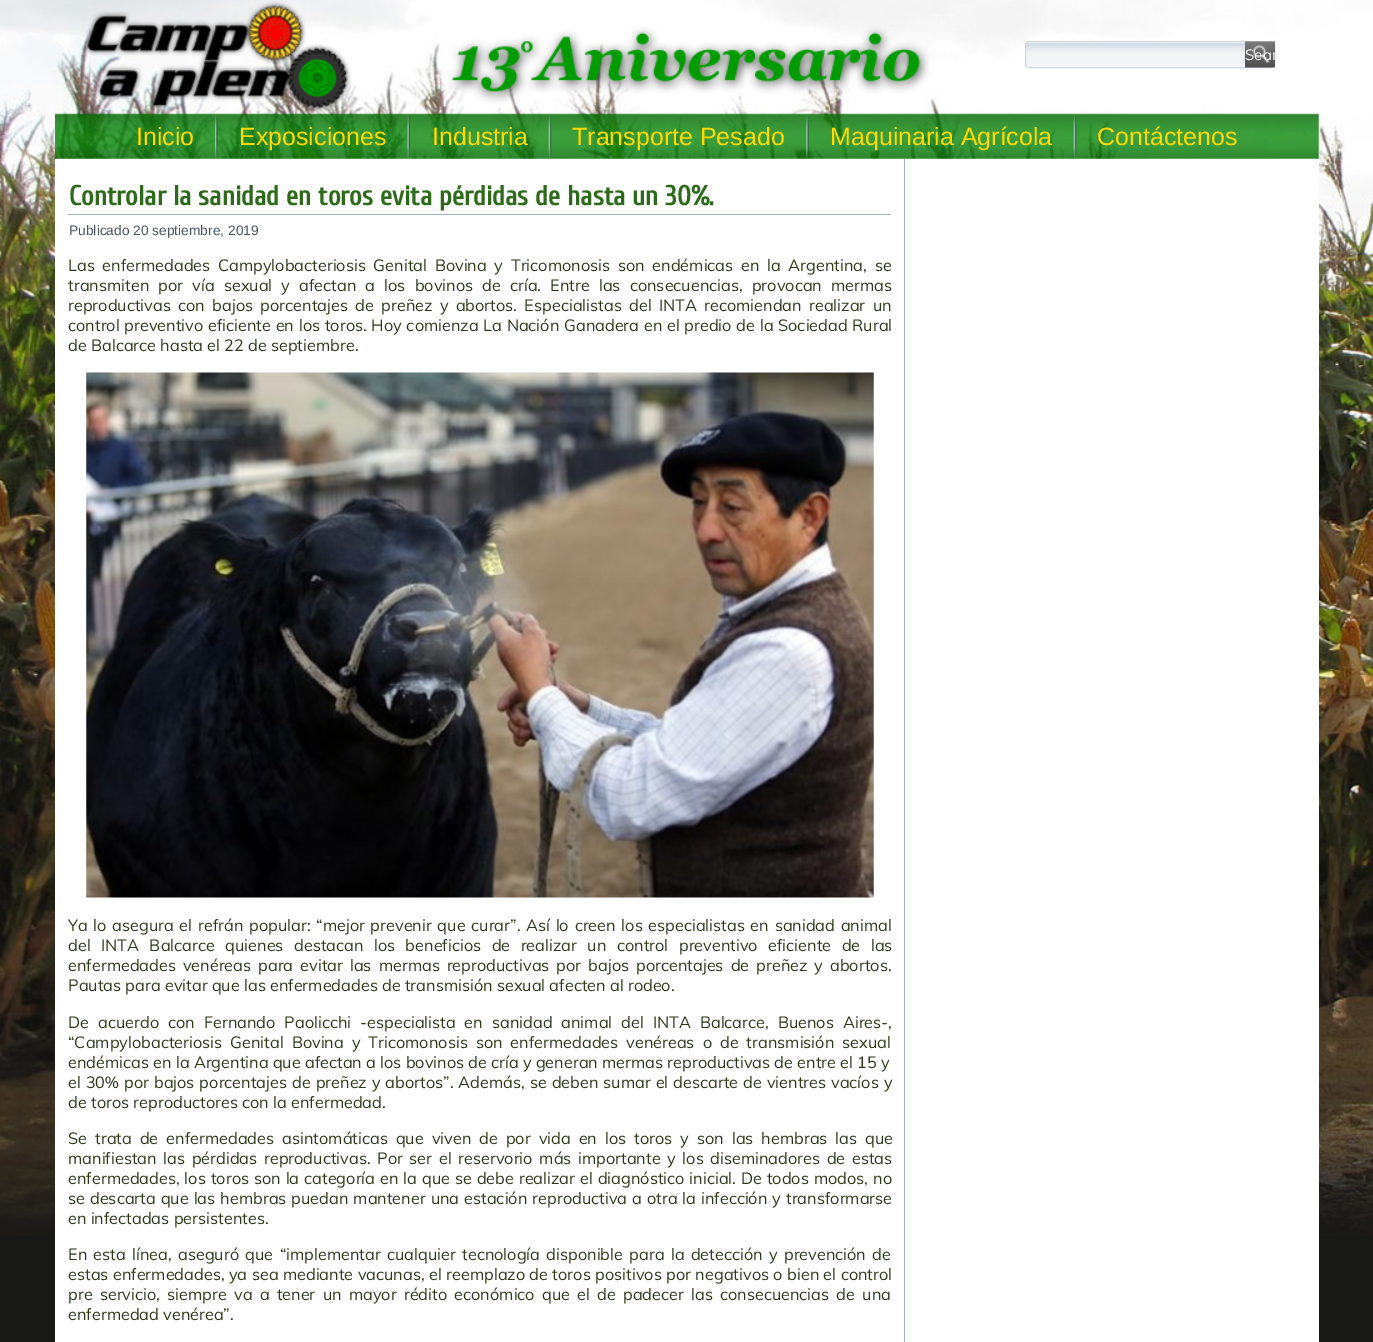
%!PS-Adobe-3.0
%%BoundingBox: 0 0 1373 1342
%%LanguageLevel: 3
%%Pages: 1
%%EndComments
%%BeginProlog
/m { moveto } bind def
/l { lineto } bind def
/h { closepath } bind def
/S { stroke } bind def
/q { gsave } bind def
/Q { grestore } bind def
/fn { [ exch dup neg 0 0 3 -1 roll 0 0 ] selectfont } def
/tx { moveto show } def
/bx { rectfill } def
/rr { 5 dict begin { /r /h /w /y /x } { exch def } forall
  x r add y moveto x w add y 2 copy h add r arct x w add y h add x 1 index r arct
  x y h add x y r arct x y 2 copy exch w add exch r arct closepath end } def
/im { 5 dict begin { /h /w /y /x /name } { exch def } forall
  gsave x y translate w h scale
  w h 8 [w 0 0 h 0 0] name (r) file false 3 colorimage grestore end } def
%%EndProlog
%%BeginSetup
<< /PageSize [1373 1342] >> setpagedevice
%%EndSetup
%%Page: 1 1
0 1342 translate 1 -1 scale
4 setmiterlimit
0.094 0.094 0.086 setrgbcolor
0 0 1373 1342 bx
(image0.raw) 0 0 1373 1236 im
1 setgray
55 0 1264 1342 bx
(image1.raw) 55 0 1264 159 im
q 1026 43 m 1245 43 l 1245 66 l 1026 66 l h clip newpath
<< /ShadingType 2 /ColorSpace /DeviceRGB /Coords [1150 42 1150 66] /Extend [true true] /Function << /FunctionType 3 /Domain [0 1] /Functions [<< /FunctionType 2 /Domain [0 1] /C0 [0.8 0.839 0.878] /C1 [0.937 0.949 0.961] /N 1 >> << /FunctionType 2 /Domain [0 1] /C0 [0.937 0.949 0.961] /C1 [0.949 0.961 0.969] /N 1 >> << /FunctionType 2 /Domain [0 1] /C0 [0.949 0.961 0.969] /C1 [0.949 0.961 0.969] /N 1 >>] /Bounds [0.4 0.5] /Encode [0 1 0 1 0 1] >> >> shfill Q
0.8 0.839 0.878 setrgbcolor
1025.5 41.5 249 26 3.5 rr S
(image2.raw) 1245 41 30 27 im
q
1245 41 30 27 rectclip
/Muli-Regular 15 fn
1 setgray
(Sear) 1245 60 tx
Q
/LiberationSans-Regular 25 fn
1 0.851 0 setrgbcolor
(Inicio) 136 145 tx
(image3.raw) 215 115 3 44 im
(Exposiciones) 239 145 tx
(image4.raw) 407 115 3 44 im
(Industria) 432 145 tx
(image5.raw) 548 115 4 44 im
(Transporte Pesado) 572 145 tx
(image6.raw) 806 115 3 44 im
(Maquinaria Agrícola) 830 145 tx
(image7.raw) 1073 115 4 44 im
(Contáctenos) 1097 145 tx
0.612 0.71 0.788 setrgbcolor
68 214 823 1 bx
/Cuprum-Bold 27.5 fn
0.176 0.416 0.098 setrgbcolor
(Controlar la sanidad en toros evita pérdidas de hasta un 30%.) 69 205 tx
/LiberationSans-Regular 13.75 fn
0.282 0.333 0.38 setrgbcolor
(Publicado 20 septiembre, 2019) 69 235 tx
/Muli-Regular 16.25 fn
0.169 0.224 0.098 setrgbcolor
68 271 m 3.5 0 32 (Las enfermedades Campylobacteriosis Genital Bovina y Tricomonosis son endémicas en la Argentina, se) widthshow
68 291 m 4.9 0 32 (transmiten por vía sexual y afectan a los bovinos de cría. Entre las consecuencias, provocan mermas) widthshow
68 311 m 3.1 0 32 (reproductivas con bajos porcentajes de preñez y abortos. Especialistas del INTA recomiendan realizar un) widthshow
68 331 m 0.5 0 32 (control preventivo eficiente en los toros. Hoy comienza La Nación Ganadera en el predio de la Sociedad Rural) widthshow
(de Balcarce hasta el 22 de septiembre.) 68 351 tx
(image8.raw) 86 372 788 526 im
68 931 m 1.5 0 32 (Ya lo asegura el refrán popular: “mejor prevenir que curar”. Así lo creen los especialistas en sanidad animal) widthshow
68 951 m 6.25 0 32 (del INTA Balcarce quienes destacan los beneficios de realizar un control preventivo eficiente de las) widthshow
68 971 m 2.75 0 32 (enfermedades venéreas para evitar las mermas reproductivas por bajos porcentajes de preñez y abortos.) widthshow
(Pautas para evitar que las enfermedades de transmisión sexual afecten al rodeo.) 68 991 tx
68 1028 m 4.75 0 32 (De acuerdo con Fernando Paolicchi -especialista en sanidad animal del INTA Balcarce, Buenos Aires-,) widthshow
68 1048 m 3.75 0 32 (“Campylobacteriosis Genital Bovina y Tricomonosis son enfermedades venéreas o de transmisión sexual) widthshow
(endémicas en la Argentina que afectan a los bovinos de cría y generan mermas reproductivas de entre el 15 y) 68 1068 tx
68 1088 m 0.75 0 32 (el 30% por bajos porcentajes de preñez y abortos”. Además, se deben sumar el descarte de vientres vacíos y) widthshow
(de toros reproductores con la enfermedad.) 68 1108 tx
68 1144 m 3.75 0 32 (Se trata de enfermedades asintomáticas que viven de por vida en los toros y son las hembras las que) widthshow
68 1164 m 2.4 0 32 (manifiestan las pérdidas reproductivas. Por ser el reservorio más importante y los diseminadores de estas) widthshow
68 1184 m 0.7 0 32 (enfermedades, los toros son la categoría en la que se debe realizar el diagnóstico inicial. De todos modos, no) widthshow
68 1204 m 0.75 0 32 (se descarta que las hembras puedan mantener una estación reproductiva a otra la infección y transformarse) widthshow
(en infectadas persistentes.) 68 1224 tx
68 1260 m 2.1 0 32 (En esta línea, aseguró que “implementar cualquier tecnología disponible para la detección y prevención de) widthshow
68 1280 m 0.2 0 32 (estas enfermedades, ya sea mediante vacunas, el reemplazo de toros positivos por negativos o bien el control) widthshow
68 1300 m 3 0 32 (pre servicio, siempre va a tener un mayor rédito económico que el de padecer las consecuencias de una) widthshow
(enfermedad venérea”.) 68 1320 tx
0.612 0.71 0.788 setrgbcolor
904 159 1 1183 bx
showpage
%%EOF
